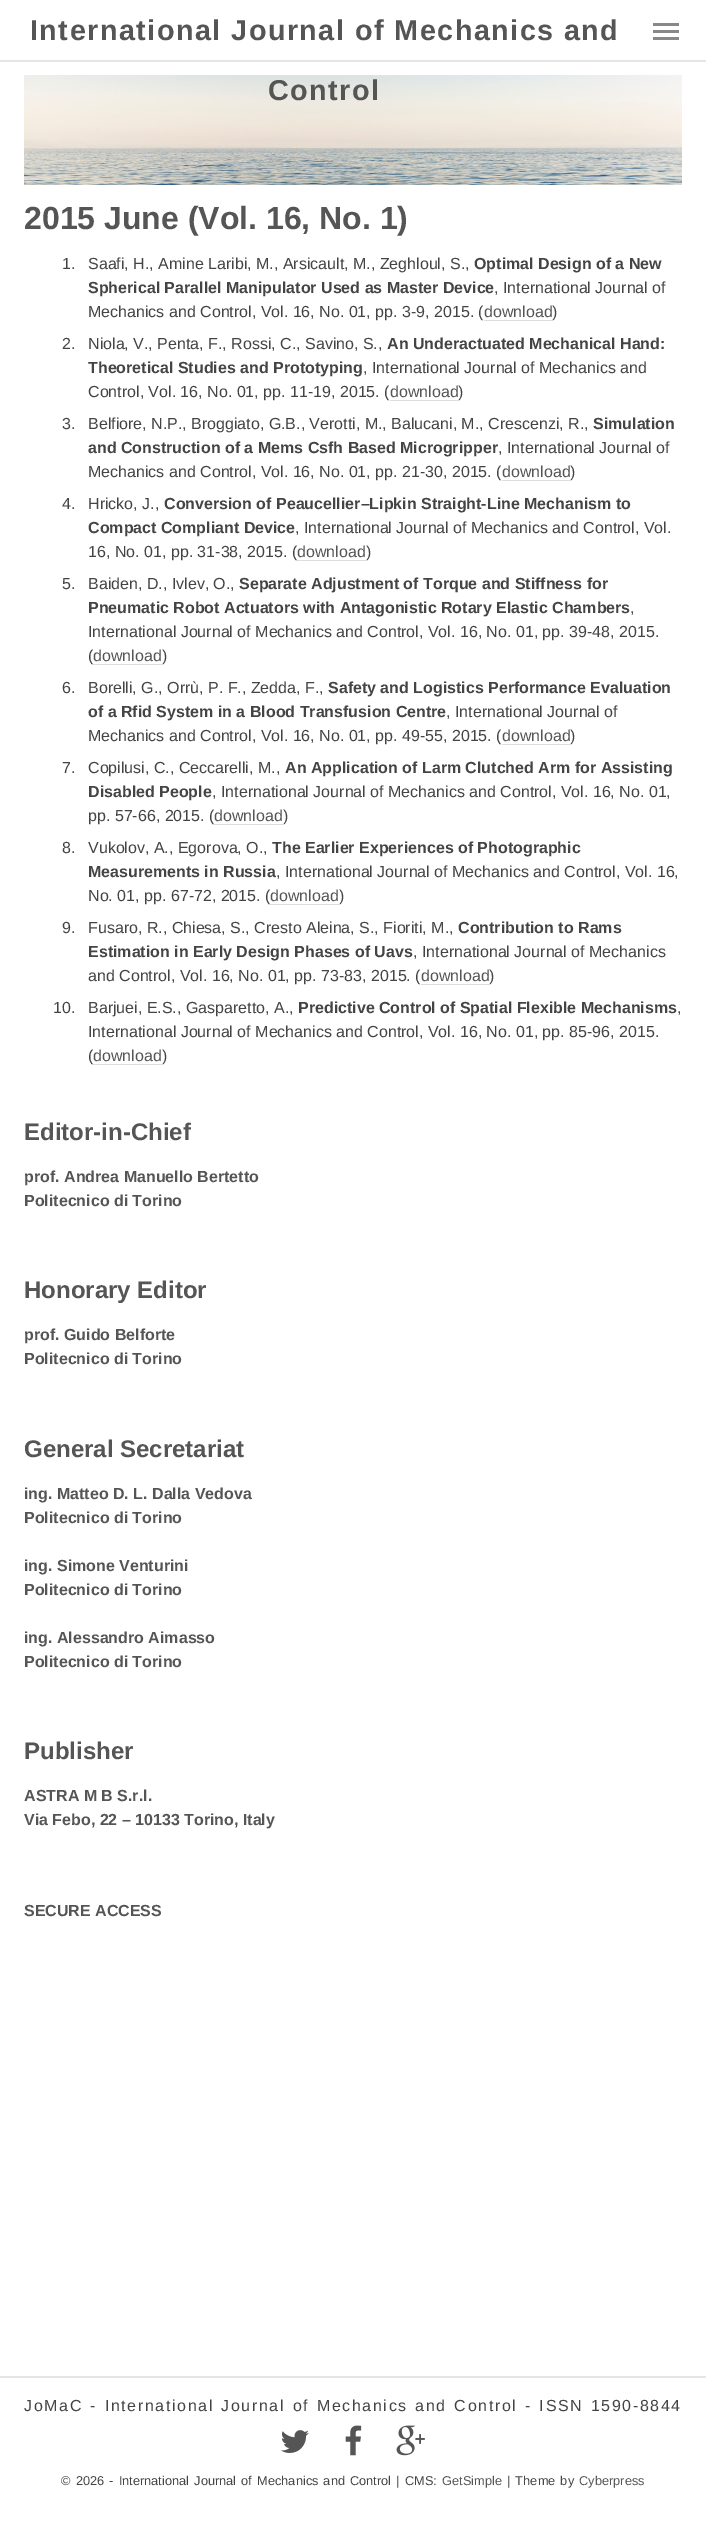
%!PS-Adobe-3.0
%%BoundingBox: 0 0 706 2522
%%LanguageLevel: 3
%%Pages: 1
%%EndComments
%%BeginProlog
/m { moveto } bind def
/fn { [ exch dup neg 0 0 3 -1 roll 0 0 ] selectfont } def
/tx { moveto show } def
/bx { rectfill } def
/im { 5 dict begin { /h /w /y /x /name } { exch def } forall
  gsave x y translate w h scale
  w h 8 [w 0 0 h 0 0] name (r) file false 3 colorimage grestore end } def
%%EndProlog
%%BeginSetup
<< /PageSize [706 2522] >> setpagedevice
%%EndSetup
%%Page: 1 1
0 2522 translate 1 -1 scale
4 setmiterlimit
1 setgray
0 0 706 2522 bx
0.898 setgray
0 60 706 2 bx
/LiberationSans-Bold 28.8 fn
0.333 setgray
30 40 m 1.45 0 (International Journal of Mechanics and) ashow
(image1.raw) 24 75 658 110 im
268 100 m 1.45 0 (Control) ashow
(image0.raw) 653 23 26 17 im
/LiberationSans-Bold 32 fn
(2015 June \(Vol. 16, No. 1\)) 24 229 tx
/LiberationSans-Regular 16 fn
0.267 setgray
(1.) 62 269 tx
(Saafi, H., Amine Laribi, M., Arsicault, M., Zeghloul, S.,) 88 269 tx
/LiberationSans-Bold 16 fn
(Optimal Design of a New) 474 269 tx
(Spherical Parallel Manipulator Used as Master Device) 88 293 tx
/LiberationSans-Regular 16 fn
(, International Journal of) 494 293 tx
(Mechanics and Control, Vol. 16, No. 01, pp. 3-9, 2015. \() 88 317 tx
0.333 setgray
(download) 484 317 tx
0.867 setgray
484 320 68 1 bx
0.267 setgray
(\)) 552 317 tx
(2.) 62 349 tx
(Niola, V., Penta, F., Rossi, C., Savino, S.,) 88 349 tx
/LiberationSans-Bold 16 fn
(An Underactuated Mechanical Hand:) 387 349 tx
(Theoretical Studies and Prototyping) 88 373 tx
/LiberationSans-Regular 16 fn
(, International Journal of Mechanics and) 363 373 tx
(Control, Vol. 16, No. 01, pp. 11-19, 2015. \() 88 397 tx
0.333 setgray
(download) 390 397 tx
0.867 setgray
390 400 68 1 bx
0.267 setgray
(\)) 458 397 tx
(3.) 62 429 tx
(Belfiore, N.P., Broggiato, G.B., Verotti, M., Balucani, M., Crescenzi, R.,) 88 429 tx
/LiberationSans-Bold 16 fn
(Simulation) 593 429 tx
(and Construction of a Mems Csfh Based Microgripper) 88 453 tx
/LiberationSans-Regular 16 fn
(, International Journal of) 498 453 tx
(Mechanics and Control, Vol. 16, No. 01, pp. 21-30, 2015. \() 88 477 tx
0.333 setgray
(download) 502 477 tx
0.867 setgray
502 480 68 1 bx
0.267 setgray
(\)) 570 477 tx
(4.) 62 509 tx
(Hricko, J.,) 88 509 tx
/LiberationSans-Bold 16 fn
(Conversion of Peaucellier–Lipkin Straight-Line Mechanism to) 164 509 tx
(Compact Compliant Device) 88 533 tx
/LiberationSans-Regular 16 fn
(, International Journal of Mechanics and Control, Vol.) 295 533 tx
(16, No. 01, pp. 31-38, 2015. \() 88 557 tx
0.333 setgray
(download) 297 557 tx
0.867 setgray
297 560 69 1 bx
0.267 setgray
(\)) 366 557 tx
(5.) 62 589 tx
(Baiden, D., Ivlev, O.,) 88 589 tx
/LiberationSans-Bold 16 fn
(Separate Adjustment of Torque and Stiffness for) 239 589 tx
(Pneumatic Robot Actuators with Antagonistic Rotary Elastic Chambers) 88 613 tx
/LiberationSans-Regular 16 fn
(,) 630 613 tx
(International Journal of Mechanics and Control, Vol. 16, No. 01, pp. 39-48, 2015.) 88 637 tx
(\() 88 661 tx
0.333 setgray
(download) 93 661 tx
0.867 setgray
93 664 69 1 bx
0.267 setgray
(\)) 162 661 tx
(6.) 62 693 tx
(Borelli, G., Orrù, P. F., Zedda, F.,) 88 693 tx
/LiberationSans-Bold 16 fn
(Safety and Logistics Performance Evaluation) 328 693 tx
(of a Rfid System in a Blood Transfusion Centre) 88 717 tx
/LiberationSans-Regular 16 fn
(, International Journal of) 446 717 tx
(Mechanics and Control, Vol. 16, No. 01, pp. 49-55, 2015. \() 88 741 tx
0.333 setgray
(download) 502 741 tx
0.867 setgray
502 744 68 1 bx
0.267 setgray
(\)) 570 741 tx
(7.) 62 773 tx
(Copilusi, C., Ceccarelli, M.,) 88 773 tx
/LiberationSans-Bold 16 fn
(An Application of Larm Clutched Arm for Assisting) 285 773 tx
(Disabled People) 88 797 tx
/LiberationSans-Regular 16 fn
(, International Journal of Mechanics and Control, Vol. 16, No. 01,) 212 797 tx
(pp. 57-66, 2015. \() 88 821 tx
0.333 setgray
(download) 214 821 tx
0.867 setgray
214 824 69 1 bx
0.267 setgray
(\)) 283 821 tx
(8.) 62 853 tx
(Vukolov, A., Egorova, O.,) 88 853 tx
/LiberationSans-Bold 16 fn
(The Earlier Experiences of Photographic) 272 853 tx
(Measurements in Russia) 88 877 tx
/LiberationSans-Regular 16 fn
(, International Journal of Mechanics and Control, Vol. 16,) 276 877 tx
(No. 01, pp. 67-72, 2015. \() 88 901 tx
0.333 setgray
(download) 270 901 tx
0.867 setgray
270 904 69 1 bx
0.267 setgray
(\)) 339 901 tx
(9.) 62 933 tx
(Fusaro, R., Chiesa, S., Cresto Aleina, S., Fioriti, M.,) 88 933 tx
/LiberationSans-Bold 16 fn
(Contribution to Rams) 458 933 tx
(Estimation in Early Design Phases of Uavs) 88 957 tx
/LiberationSans-Regular 16 fn
(, International Journal of Mechanics) 413 957 tx
(and Control, Vol. 16, No. 01, pp. 73-83, 2015. \() 88 981 tx
0.333 setgray
(download) 421 981 tx
0.867 setgray
421 984 68 1 bx
0.267 setgray
(\)) 489 981 tx
(10.) 53 1013 tx
(Barjuei, E.S., Gasparetto, A.,) 88 1013 tx
/LiberationSans-Bold 16 fn
(Predictive Control of Spatial Flexible Mechanisms) 298 1013 tx
/LiberationSans-Regular 16 fn
(,) 677 1013 tx
(International Journal of Mechanics and Control, Vol. 16, No. 01, pp. 85-96, 2015.) 88 1037 tx
(\() 88 1061 tx
0.333 setgray
(download) 93 1061 tx
0.867 setgray
93 1064 69 1 bx
0.267 setgray
(\)) 162 1061 tx
/LiberationSans-Bold 24 fn
0.333 setgray
(Editor-in-Chief) 24 1140 tx
/LiberationSans-Bold 16 fn
(prof. Andrea Manuello Bertetto) 24 1182 tx
(Politecnico di Torino) 24 1206 tx
/LiberationSans-Bold 24 fn
(Honorary Editor) 24 1298 tx
/LiberationSans-Bold 16 fn
(prof. Guido Belforte) 24 1340 tx
(Politecnico di Torino) 24 1364 tx
/LiberationSans-Bold 24 fn
(General Secretariat) 24 1457 tx
/LiberationSans-Bold 16 fn
(ing. Matteo D. L. Dalla Vedova) 24 1499 tx
(Politecnico di Torino) 24 1523 tx
(ing. Simone Venturini) 24 1571 tx
(Politecnico di Torino) 24 1595 tx
(ing. Alessandro Aimasso) 24 1643 tx
(Politecnico di Torino) 24 1667 tx
/LiberationSans-Bold 24 fn
(Publisher) 24 1759 tx
/LiberationSans-Bold 16 fn
(ASTRA M B S.r.l.) 24 1801 tx
(Via Febo, 22 – 10133 Torino, Italy) 24 1825 tx
(SECURE ACCESS) 24 1916 tx
0.898 setgray
0 2376 706 2 bx
/LiberationSans-Regular 16 fn
0.267 setgray
24 2411 m 1.6 0 32 1.6 0 (JoMaC - International Journal of Mechanics and Control - ISSN 1590-8844) awidthshow
(image2.raw) 281 2430 28 23 im
(image3.raw) 345 2425 17 31 im
(image4.raw) 396 2425 29 31 im
/LiberationSans-Regular 12.8 fn
61 2485 m 1.6 0 32 (© 2026 - International Journal of Mechanics and Control | CMS:) widthshow
0.333 setgray
(GetSimple) 442 2485 tx
0.267 setgray
507 2485 m 1.6 0 32 (| Theme by) widthshow
0.333 setgray
(Cyberpress) 579 2485 tx
showpage
%%EOF
